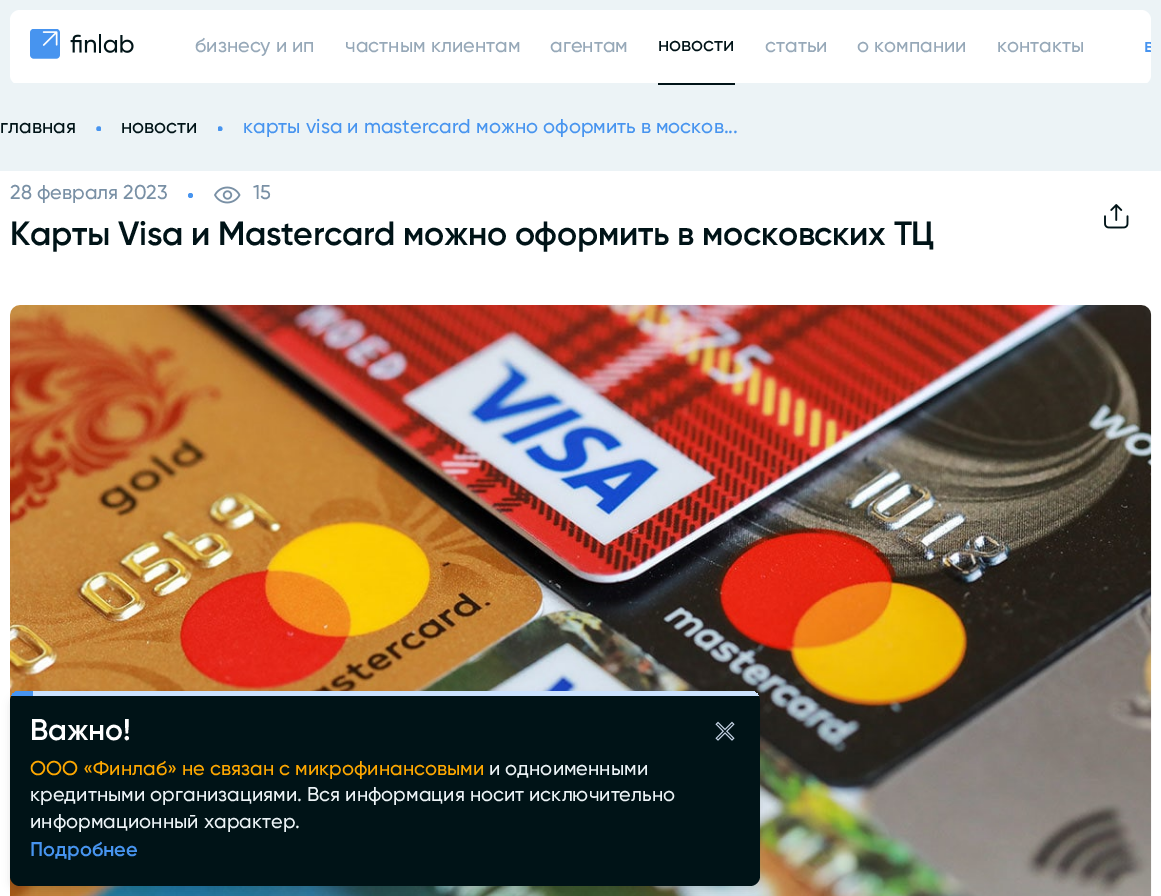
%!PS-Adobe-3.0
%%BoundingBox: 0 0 1161 896
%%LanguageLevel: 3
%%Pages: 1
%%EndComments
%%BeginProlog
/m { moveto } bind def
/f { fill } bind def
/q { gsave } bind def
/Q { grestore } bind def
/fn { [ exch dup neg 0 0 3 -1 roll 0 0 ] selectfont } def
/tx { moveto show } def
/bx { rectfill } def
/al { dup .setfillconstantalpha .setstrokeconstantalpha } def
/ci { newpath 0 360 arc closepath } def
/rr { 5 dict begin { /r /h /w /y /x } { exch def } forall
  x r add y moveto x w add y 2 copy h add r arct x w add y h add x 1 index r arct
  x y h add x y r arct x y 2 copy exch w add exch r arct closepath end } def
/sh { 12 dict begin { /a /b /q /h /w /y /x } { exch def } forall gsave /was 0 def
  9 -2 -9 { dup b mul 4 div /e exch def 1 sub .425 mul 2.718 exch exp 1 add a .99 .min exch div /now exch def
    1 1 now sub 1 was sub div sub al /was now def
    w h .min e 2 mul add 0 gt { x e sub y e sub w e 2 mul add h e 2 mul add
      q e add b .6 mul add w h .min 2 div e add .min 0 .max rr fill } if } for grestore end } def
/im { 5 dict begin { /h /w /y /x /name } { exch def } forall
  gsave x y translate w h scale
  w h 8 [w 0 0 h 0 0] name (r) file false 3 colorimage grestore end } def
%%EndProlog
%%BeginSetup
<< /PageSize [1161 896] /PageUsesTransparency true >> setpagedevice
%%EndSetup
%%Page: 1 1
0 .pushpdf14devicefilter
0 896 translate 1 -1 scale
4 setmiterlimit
0.925 0.953 0.965 setrgbcolor
0 0 1161 896 bx
1 setgray
10 10 1141 75 10 rr f
(image0.raw) 30 29 104 30 im
/Gilroy-Medium 20 fn
0.588 0.659 0.722 setrgbcolor
(бизнесу и ип) 195 52 tx
(частным клиентам) 345 52 tx
(агентам) 550 52 tx
0.925 0.953 0.965 setrgbcolor
10 83 1141 2 bx
0 0.075 0.09 setrgbcolor
658 83 77 2 bx
(новости) 658 51 tx
0.588 0.659 0.722 setrgbcolor
(статьи) 765 52 tx
(о компании) 857 52 tx
(контакты) 997 52 tx
q
10 10 1141 75 rectclip
/Gilroy-SemiBold 20 fn
0.278 0.58 0.937 setrgbcolor
(в) 1144 52 tx
Q
0 0.075 0.09 setrgbcolor
(главная) 0 133 tx
q
96 126 5 5 rectclip
0.278 0.58 0.937 setrgbcolor
98.8 128.8 2.5 ci f
Q
(новости) 121 133 tx
q
218 126 5 5 rectclip
0.278 0.58 0.937 setrgbcolor
220 128.8 2.5 ci f
Q
0.278 0.58 0.937 setrgbcolor
(карты visa и mastercard можно оформить в москов...) 243 133 tx
1 setgray
0 171 1161 725 bx
0.475 0.565 0.647 setrgbcolor
(28 февраля 2023) 10 199 tx
0.278 0.58 0.937 setrgbcolor
190.5 195.5 2.5 ci f
(image1.raw) 214 186 27 18 im
0.475 0.565 0.647 setrgbcolor
(15) 253 199 tx
/Gilroy-SemiBold 33.75 fn
0 0.075 0.09 setrgbcolor
10 245 m -0.35 0 (Карты Visa и Mastercard можно оформить в московских ТЦ) ashow
(image2.raw) 1104 204 25 25 im
(image3.raw) 10 305 1142 591 im
0 setgray
10 696 750 195 10 4 0.1 sh
0 0.075 0.09 setrgbcolor
10 691 750 195 10 rr f
q
10 691 750 195 10 rr clip newpath
0.796 0.886 0.996 setrgbcolor
10 691 750 5 bx
0.278 0.58 0.937 setrgbcolor
10 691 23 5 bx
Q
/Gilroy-SemiBold 30 fn
1 setgray
30 740 m -0.25 0 (Важно!) ashow
(image4.raw) 715 721 20 20 im
/Gilroy-Medium 20 fn
1 0.659 0 setrgbcolor
(ООО «Финлаб» не связан с микрофинансовыми) 30 775 tx
0.925 0.953 0.965 setrgbcolor
(и одноименными) 489 775 tx
(кредитными организациями. Вся информация носит исключительно) 30 801 tx
(информационный характер.) 30 828 tx
/Gilroy-SemiBold 20 fn
0.278 0.58 0.937 setrgbcolor
(Подробнее) 30 856 tx
.poppdf14devicefilter showpage
%%EOF
